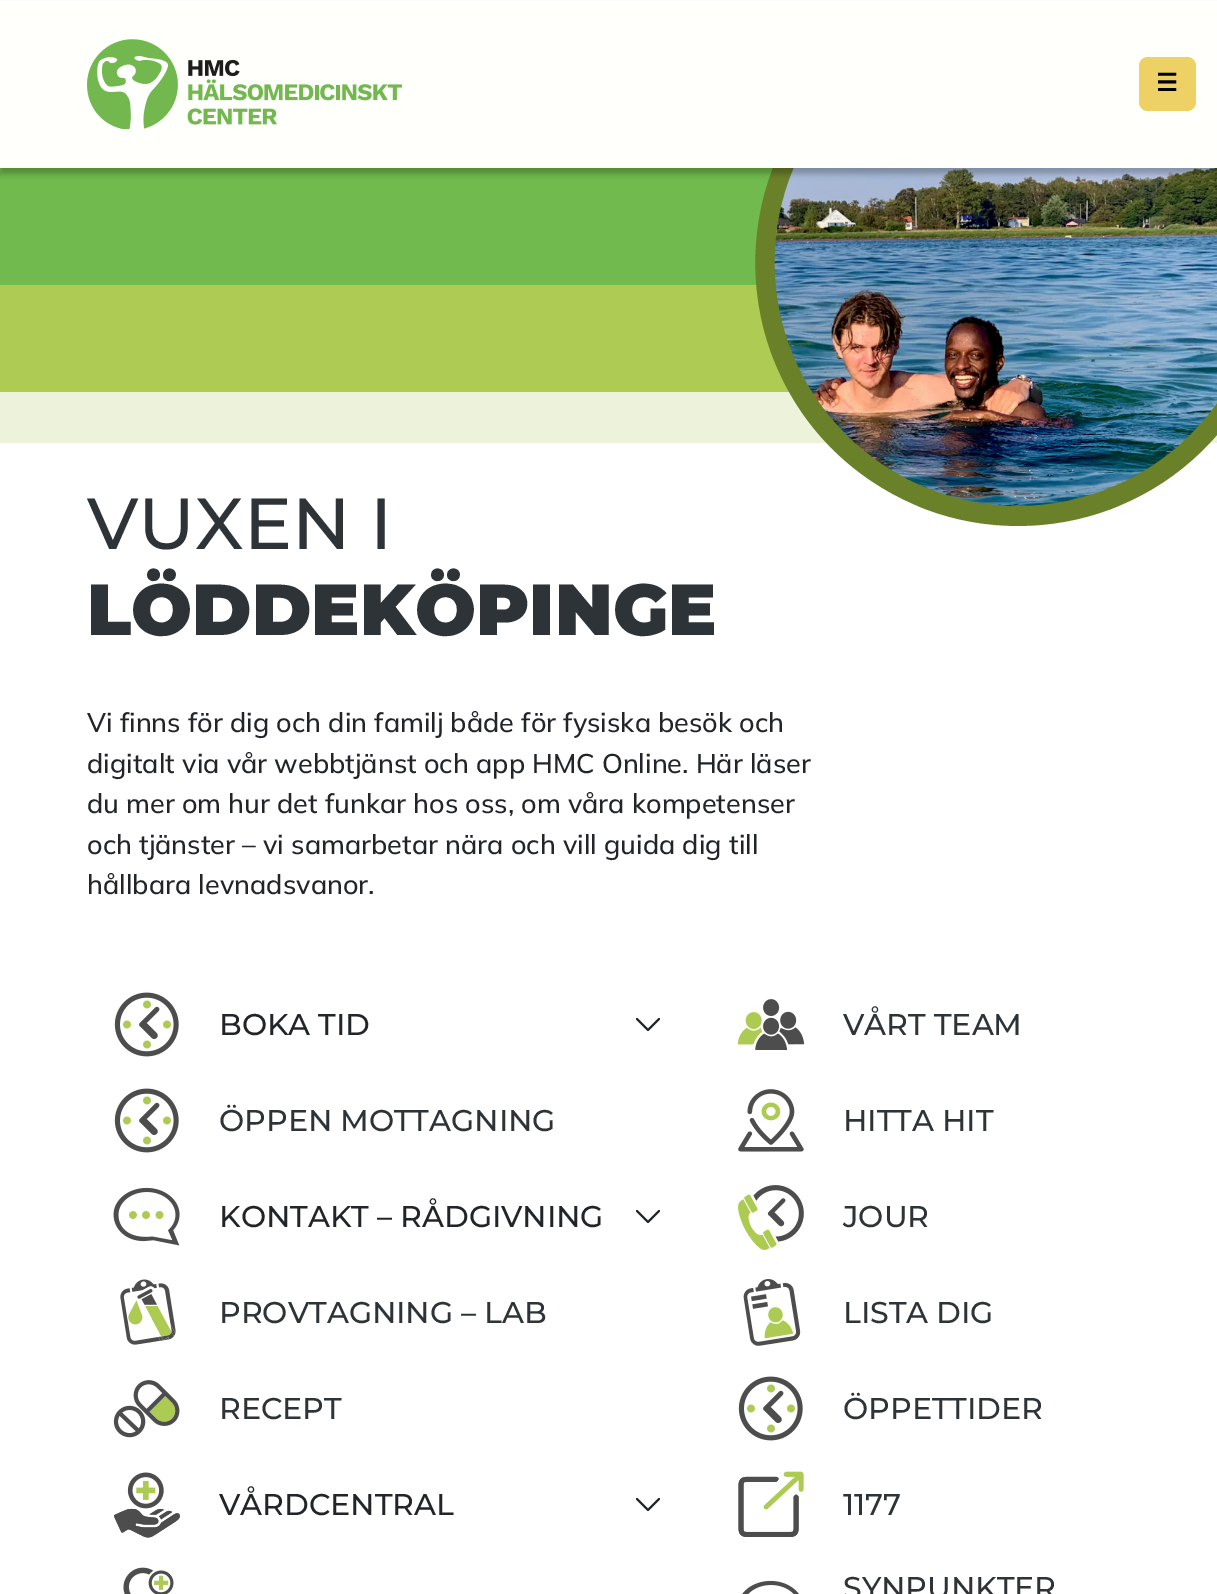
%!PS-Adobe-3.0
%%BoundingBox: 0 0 1217 1594
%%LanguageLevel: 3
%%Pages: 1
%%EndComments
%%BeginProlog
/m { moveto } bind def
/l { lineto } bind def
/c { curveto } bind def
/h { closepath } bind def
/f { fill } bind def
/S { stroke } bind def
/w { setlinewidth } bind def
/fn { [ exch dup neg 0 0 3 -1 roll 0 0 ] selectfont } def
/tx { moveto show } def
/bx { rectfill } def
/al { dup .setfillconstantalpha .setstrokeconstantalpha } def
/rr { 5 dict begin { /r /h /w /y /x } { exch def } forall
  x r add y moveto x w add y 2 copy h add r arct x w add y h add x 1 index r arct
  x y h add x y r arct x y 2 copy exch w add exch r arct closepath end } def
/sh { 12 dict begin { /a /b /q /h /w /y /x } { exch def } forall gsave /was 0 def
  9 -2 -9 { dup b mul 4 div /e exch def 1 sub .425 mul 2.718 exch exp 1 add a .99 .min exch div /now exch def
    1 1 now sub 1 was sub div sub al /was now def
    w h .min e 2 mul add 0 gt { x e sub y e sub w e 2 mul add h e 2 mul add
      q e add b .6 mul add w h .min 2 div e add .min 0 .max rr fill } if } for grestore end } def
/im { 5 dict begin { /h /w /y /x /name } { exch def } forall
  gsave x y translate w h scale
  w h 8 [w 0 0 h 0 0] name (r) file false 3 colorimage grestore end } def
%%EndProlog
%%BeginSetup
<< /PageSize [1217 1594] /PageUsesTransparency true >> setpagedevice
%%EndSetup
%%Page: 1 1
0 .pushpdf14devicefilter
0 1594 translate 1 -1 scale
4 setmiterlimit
1 setgray
0 0 1217 1594 bx
0.443 0.733 0.306 setrgbcolor
0 168 773 117 bx
0.682 0.8 0.325 setrgbcolor
0 285 789 107 bx
0.925 0.953 0.855 setrgbcolor
0 392 1217 51 bx
0.416 0.502 0.161 setrgbcolor
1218 434 m 1132 535 982 556 871 481 c 752 401 721 241 796 122 c 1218 122 l h f
(image1.raw) 774 168 443 338 im
0 setgray
0 6 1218 168 0 3 0.25 sh
1 1 0.988 setrgbcolor
0 1 1217 167 bx
(image0.raw) 87 39 315 90 im
0.929 0.82 0.392 setrgbcolor
1139 57 57 54 9 rr f
/DejaVuSans-Bold 24 fn
0 setgray
(☰) 1156 91 tx
/Montserrat-Medium 72 fn
0.18 0.2 0.216 setrgbcolor
(VUXEN I) 87 549 tx
/Montserrat-Black 72 fn
(LÖDDEKÖPINGE) 87 635 tx
/Mulish-Medium 27 fn
0.129 0.145 0.161 setrgbcolor
(Vi finns för dig och din familj både för fysiska besök och) 87 732 tx
(digitalt via vår webbtjänst och app HMC Online. Här läser) 87 773 tx
(du mer om hur det funkar hos oss, om våra kompetenser) 87 813 tx
(och tjänster – vi samarbetar nära och vill guida dig till) 87 854 tx
(hållbara levnadsvanor.) 87 894 tx
(image2.raw) 114 992 65 65 im
/Montserrat-Medium 30 fn
(BOKA TID) 219 1035 tx
1.9 w
1 setlinecap
1 setlinejoin
637 1019 m 648 1030 l 659 1019 l S
(image2.raw) 114 1088 65 65 im
0.18 0.2 0.216 setrgbcolor
(ÖPPEN MOTTAGNING) 219 1131 tx
(image3.raw) 113 1187 67 59 im
0.129 0.145 0.161 setrgbcolor
(KONTAKT – RÅDGIVNING) 219 1227 tx
637 1211 m 648 1222 l 659 1211 l S
(image4.raw) 120 1279 56 66 im
0.18 0.2 0.216 setrgbcolor
(PROVTAGNING – LAB) 219 1323 tx
(image5.raw) 113 1380 67 58 im
(RECEPT) 219 1419 tx
(image6.raw) 114 1472 66 66 im
0.129 0.145 0.161 setrgbcolor
(VÅRDCENTRAL) 219 1515 tx
637 1499 m 648 1510 l 659 1499 l S
(image7.raw) 123 1567 51 27 im
(image8.raw) 737 999 68 51 im
0.18 0.2 0.216 setrgbcolor
(VÅRT TEAM) 843 1035 tx
(image9.raw) 738 1089 66 63 im
(HITTA HIT) 843 1131 tx
(image10.raw) 738 1185 66 65 im
(JOUR) 843 1227 tx
(image11.raw) 743 1279 58 67 im
(LISTA DIG) 843 1323 tx
(image2.raw) 738 1376 65 65 im
(ÖPPETTIDER) 843 1419 tx
(image12.raw) 738 1471 66 66 im
(1177) 843 1515 tx
(image13.raw) 742 1580 57 14 im
(SYNPUNKTER) 843 1598 tx
.poppdf14devicefilter showpage
%%EOF
